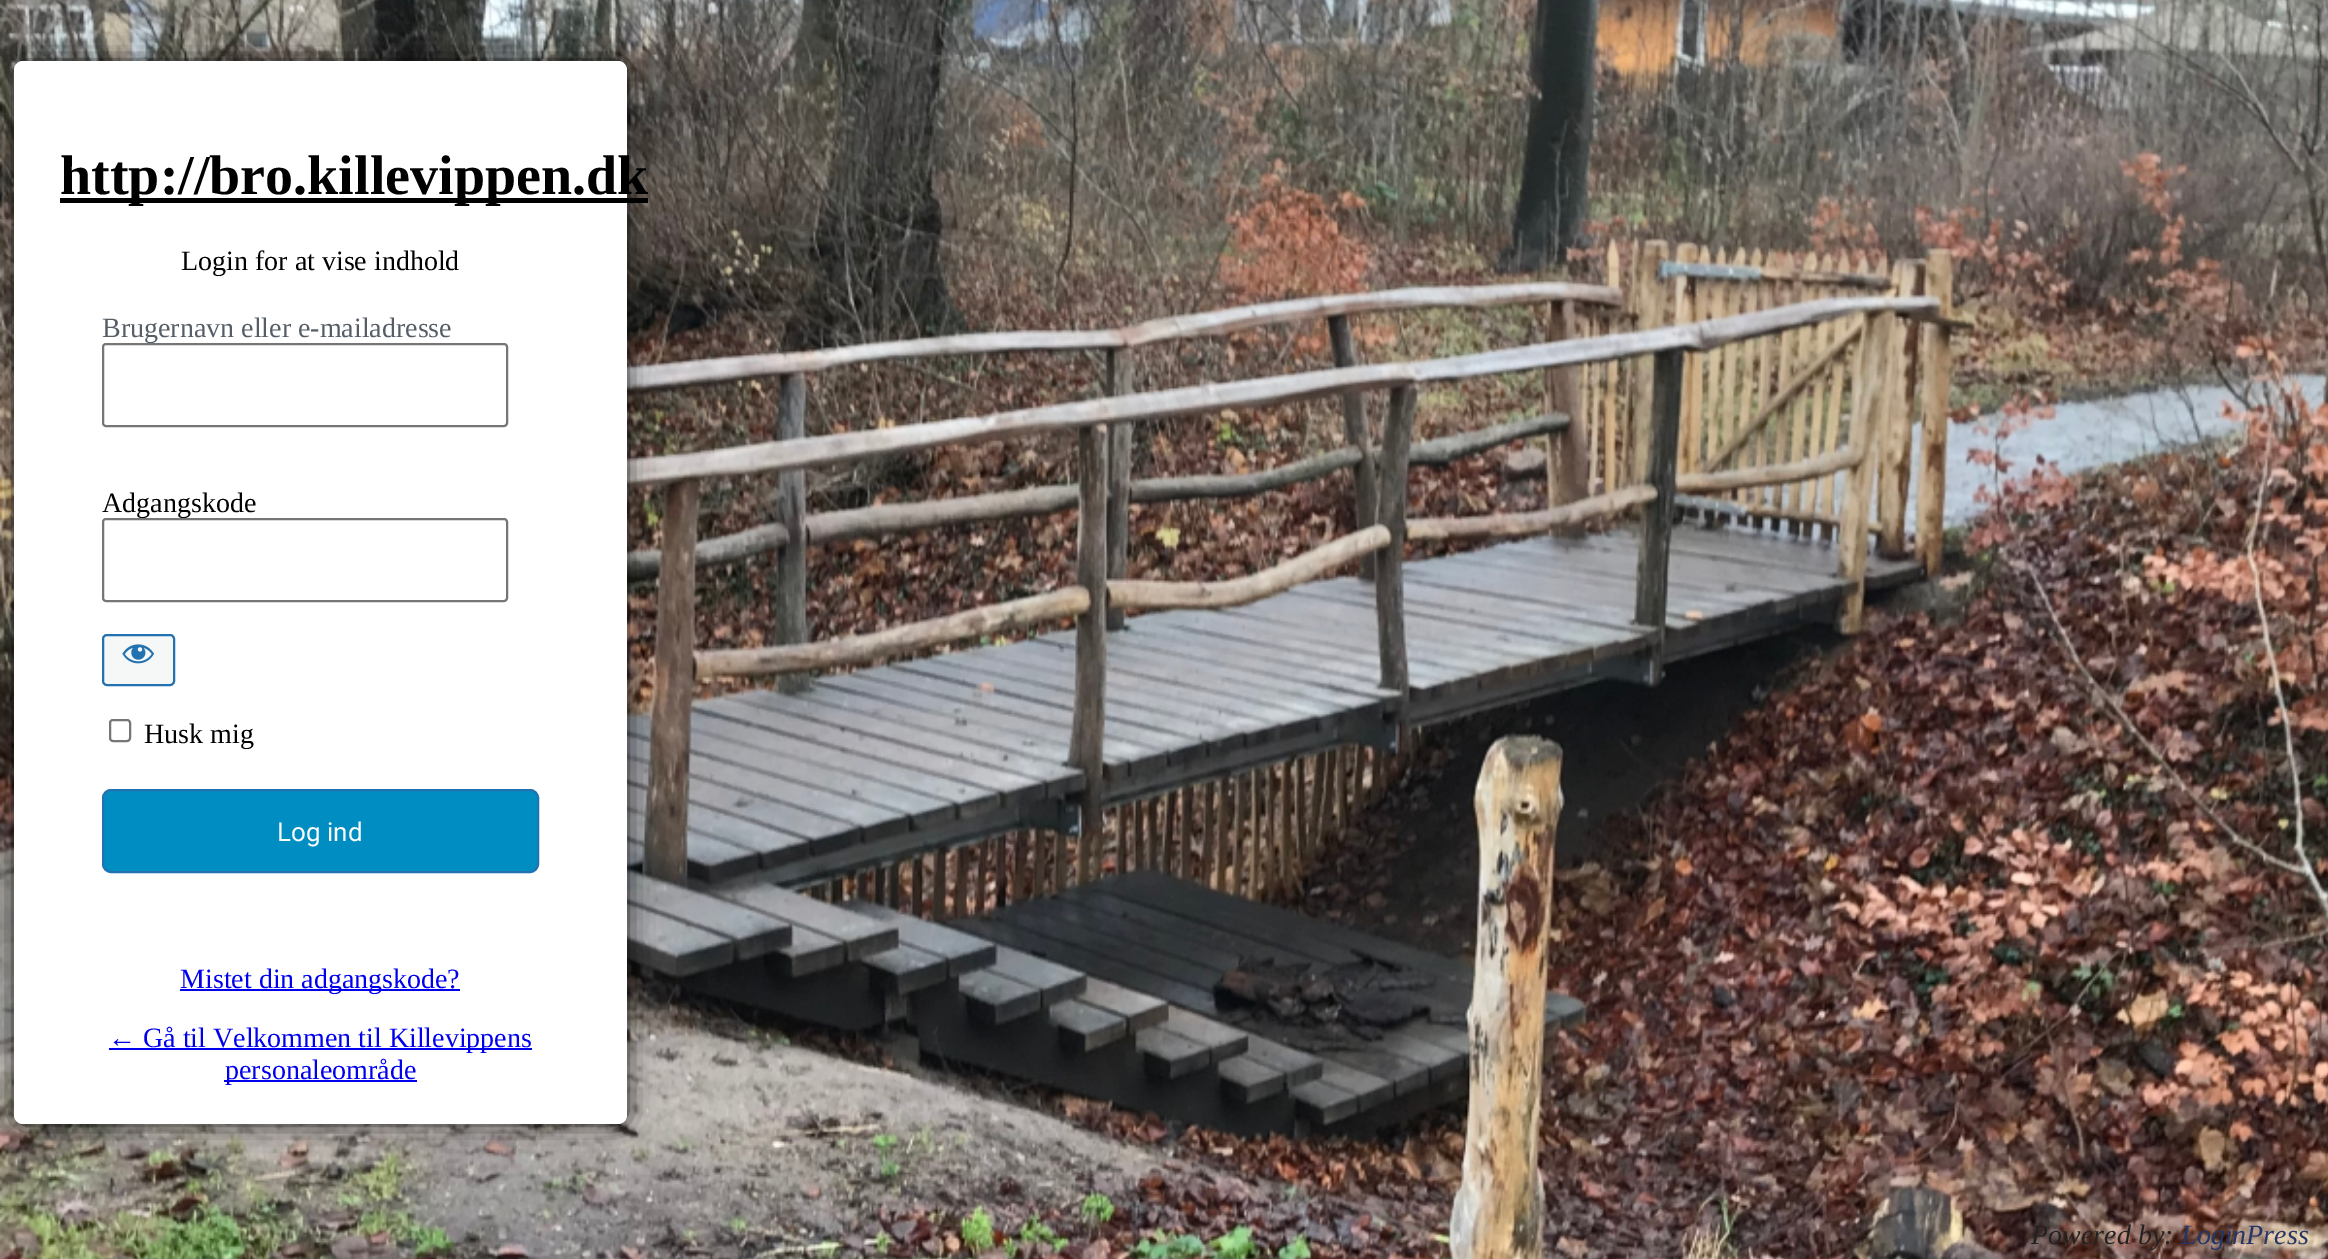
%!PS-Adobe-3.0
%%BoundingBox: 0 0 2328 1259
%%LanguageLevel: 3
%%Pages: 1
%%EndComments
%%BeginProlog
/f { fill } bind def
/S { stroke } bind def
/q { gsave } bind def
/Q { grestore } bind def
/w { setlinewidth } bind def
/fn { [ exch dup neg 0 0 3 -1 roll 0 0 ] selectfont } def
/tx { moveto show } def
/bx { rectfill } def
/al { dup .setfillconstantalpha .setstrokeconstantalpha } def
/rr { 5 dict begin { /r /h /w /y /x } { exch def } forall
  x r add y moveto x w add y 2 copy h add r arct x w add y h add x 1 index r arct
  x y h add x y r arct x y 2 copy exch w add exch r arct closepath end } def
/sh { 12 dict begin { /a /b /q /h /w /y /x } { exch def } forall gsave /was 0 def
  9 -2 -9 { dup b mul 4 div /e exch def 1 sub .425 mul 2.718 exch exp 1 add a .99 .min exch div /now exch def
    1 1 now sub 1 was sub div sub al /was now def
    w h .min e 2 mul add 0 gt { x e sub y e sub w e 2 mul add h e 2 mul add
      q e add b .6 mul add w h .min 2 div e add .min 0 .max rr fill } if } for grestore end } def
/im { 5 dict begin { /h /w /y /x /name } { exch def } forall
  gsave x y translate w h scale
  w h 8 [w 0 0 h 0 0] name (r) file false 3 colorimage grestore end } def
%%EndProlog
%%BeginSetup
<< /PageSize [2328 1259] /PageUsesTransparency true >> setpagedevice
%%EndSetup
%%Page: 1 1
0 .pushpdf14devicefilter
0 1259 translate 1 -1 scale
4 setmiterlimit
1 setgray
0 0 2328 1259 bx
(image0.raw) 0 0 2328 1259 im
0 setgray
14 61 613 1063 9 13 0.8 sh
1 setgray
14 61 613 1063 9 rr f
0 setgray
60 198 588 5 bx
/LiberationSerif-Bold 56 fn
(http://bro.killevippen.dk) 60 194 tx
/LiberationSerif-Regular 28 fn
(Login for at vise indhold) 181 270 tx
0.333 0.365 0.4 setrgbcolor
(Brugernavn eller e-mailadresse) 102 337 tx
1 setgray
103 344 404 82 3 rr q f Q
0.463 setgray
2 w
S
0 setgray
(Adgangskode) 102 512 tx
1 setgray
103 519 404 82 3 rr q f Q
0.463 setgray
S
0.965 0.969 0.969 setrgbcolor
103 635 71 50 4 rr q f Q
0.133 0.443 0.694 setrgbcolor
S
(image1.raw) 122 644 33 20 im
0.463 setgray
110 720 20 21 3 rr S
0 setgray
(Husk mig) 144 743 tx
0 0.557 0.761 setrgbcolor
103 790 435 82 8 rr q f Q
0.133 0.443 0.694 setrgbcolor
S
/Roboto-Regular 26 fn
1 setgray
(Log ind) 277 841 tx
0 0 0.933 setrgbcolor
180 989 280 2 bx
/LiberationSerif-Regular 28 fn
(Mistet din adgangskode?) 180 988 tx
109 1048 423 2 bx
(← Gå til Velkommen til Killevippens) 108 1047 tx
224 1080 193 2 bx
(personaleområde) 225 1079 tx
/LiberationSerif-Italic 28 fn
0.133 setgray
(Powered by:) 2031 1244 tx
0.149 0.204 0.4 setrgbcolor
(LoginPress) 2181 1244 tx
.poppdf14devicefilter showpage
%%EOF
